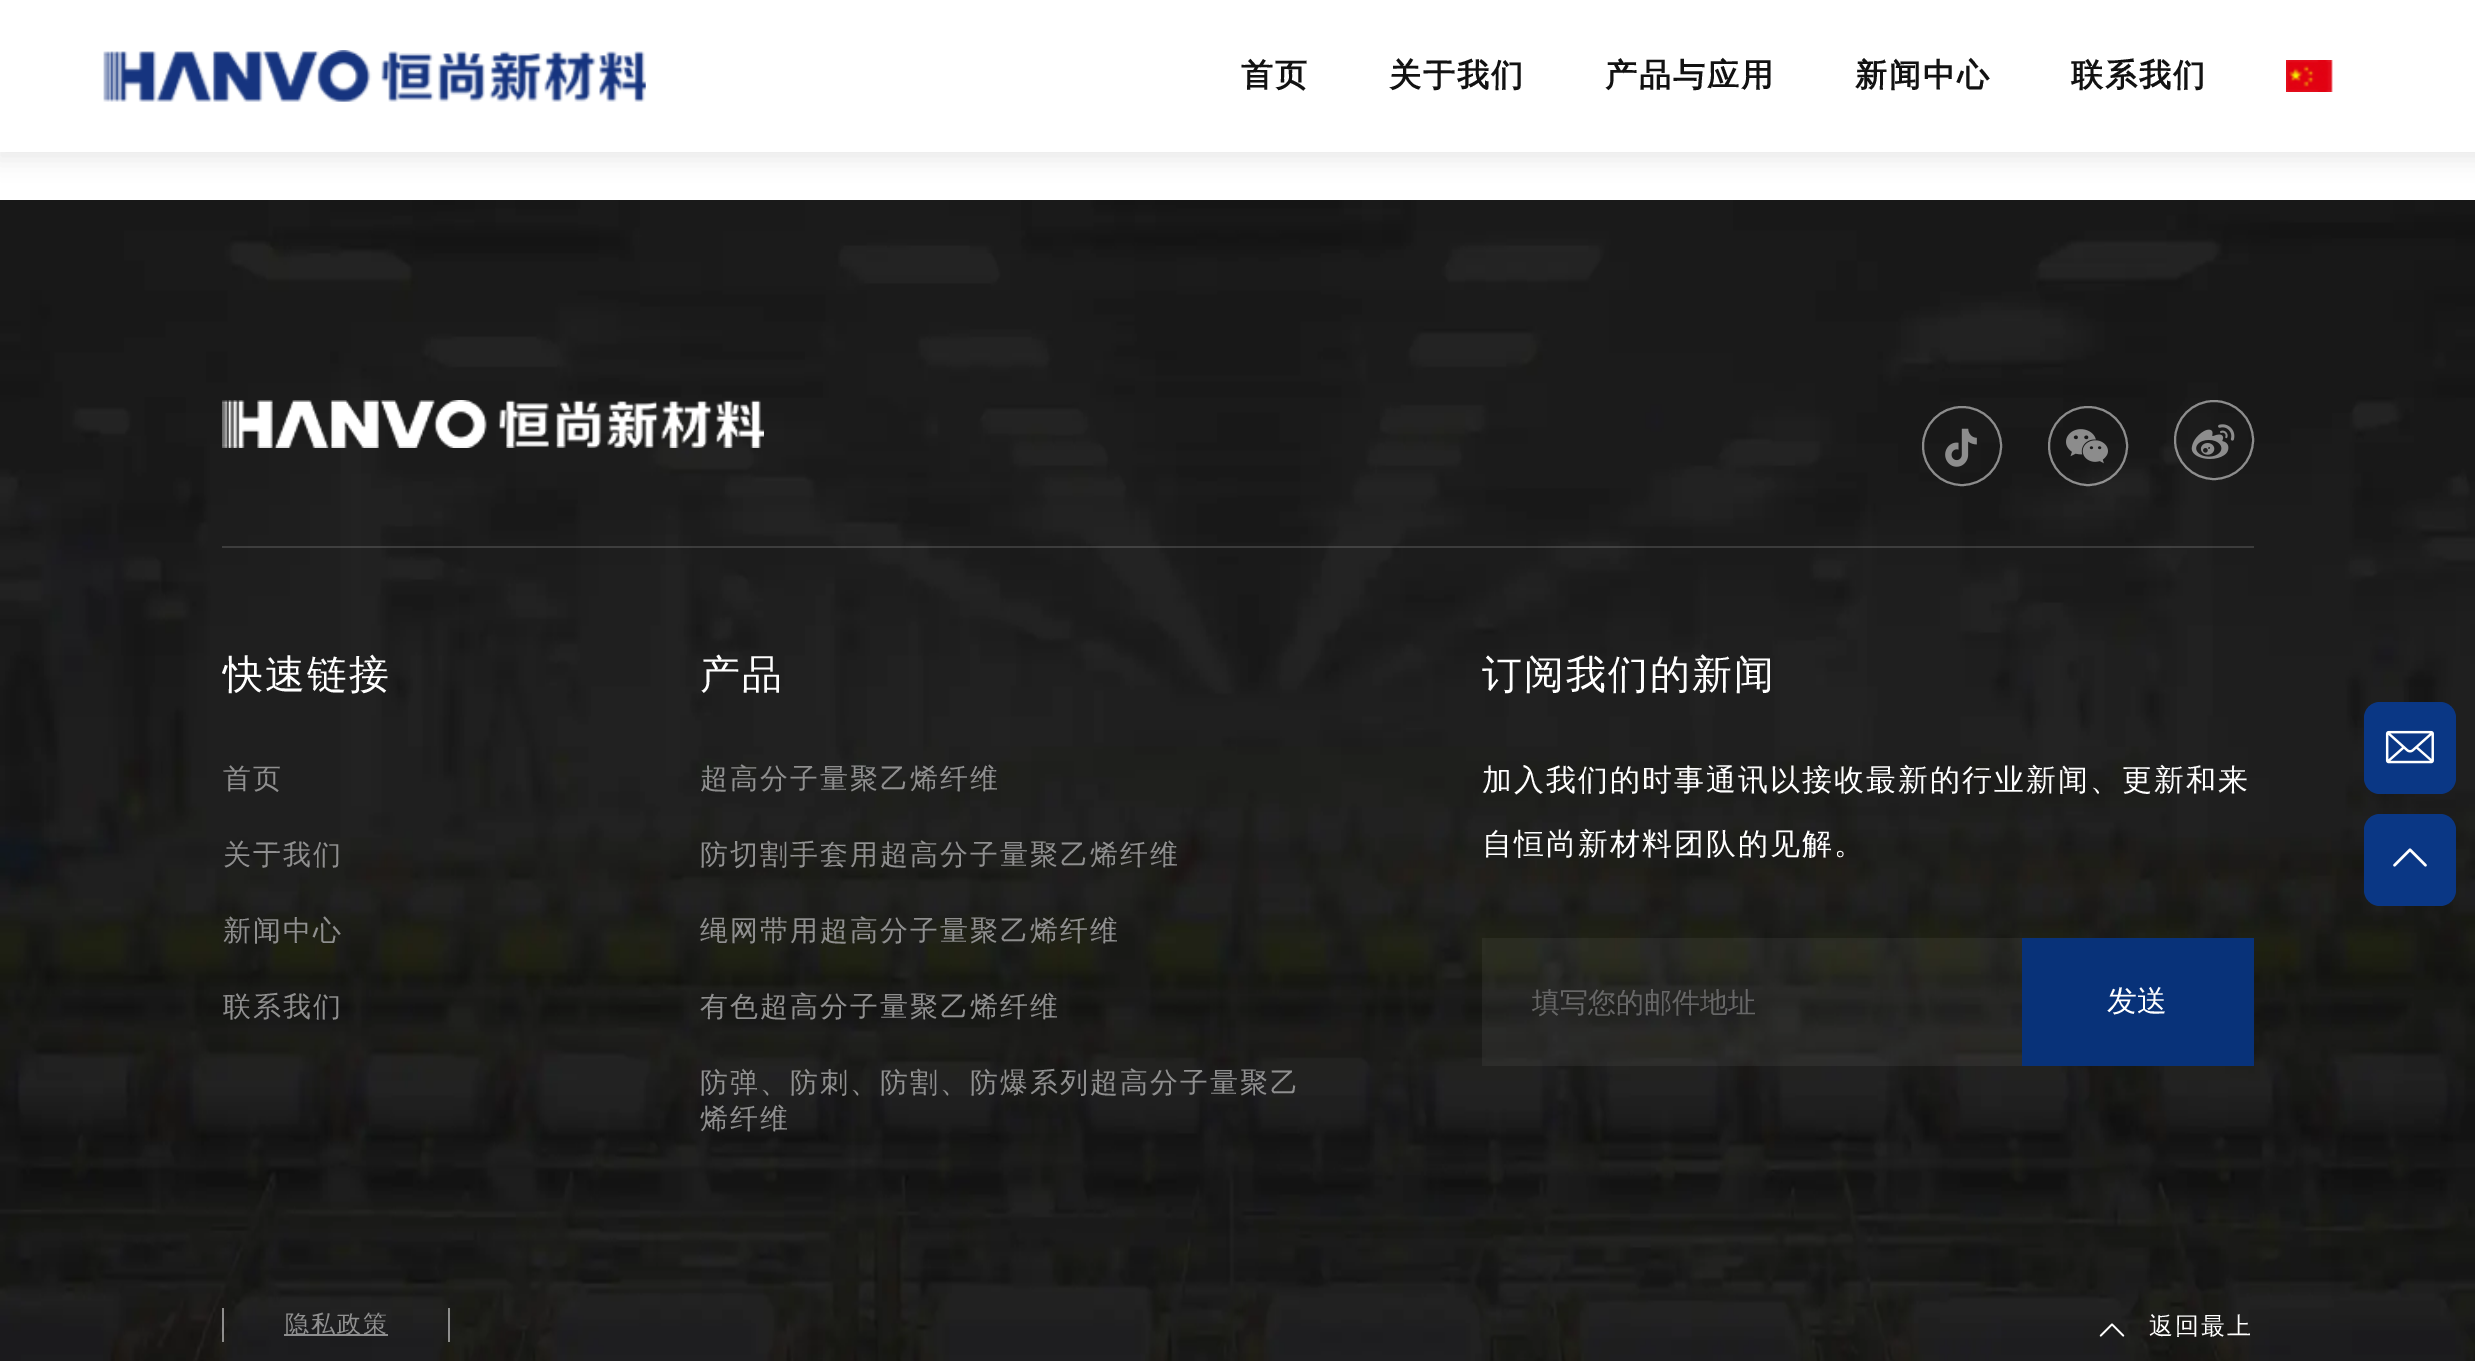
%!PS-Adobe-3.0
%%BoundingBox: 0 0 2475 1361
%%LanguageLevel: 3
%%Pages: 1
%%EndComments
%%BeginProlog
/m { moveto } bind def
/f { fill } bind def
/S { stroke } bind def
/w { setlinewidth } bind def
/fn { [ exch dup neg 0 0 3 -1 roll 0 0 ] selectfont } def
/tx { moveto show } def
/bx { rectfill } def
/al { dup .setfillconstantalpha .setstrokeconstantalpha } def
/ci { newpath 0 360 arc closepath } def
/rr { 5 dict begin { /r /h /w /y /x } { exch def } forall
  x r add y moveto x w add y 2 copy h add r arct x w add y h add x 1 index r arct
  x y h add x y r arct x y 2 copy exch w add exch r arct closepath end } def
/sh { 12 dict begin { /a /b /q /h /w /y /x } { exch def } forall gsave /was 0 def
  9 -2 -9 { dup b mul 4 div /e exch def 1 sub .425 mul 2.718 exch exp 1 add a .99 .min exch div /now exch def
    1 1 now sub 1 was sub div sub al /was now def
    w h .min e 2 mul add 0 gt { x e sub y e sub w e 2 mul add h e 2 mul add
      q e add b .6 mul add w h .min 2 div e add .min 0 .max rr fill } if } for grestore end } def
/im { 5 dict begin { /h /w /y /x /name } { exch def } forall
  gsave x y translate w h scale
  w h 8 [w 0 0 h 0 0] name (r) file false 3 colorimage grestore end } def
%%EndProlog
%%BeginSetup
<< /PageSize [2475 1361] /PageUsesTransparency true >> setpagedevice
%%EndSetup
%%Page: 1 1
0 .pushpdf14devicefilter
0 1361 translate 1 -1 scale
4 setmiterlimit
1 setgray
0 0 2475 1361 bx
0 setgray
-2 0 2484 160 0 10 0.08 sh
1 setgray
0 0 2475 152 bx
(image0.raw) 103 50 543 52 im
/WenQuanYiZenHei-Bold 32 fn
0.071 setgray
1241 86 m 2 0 (首页) ashow
1389 86 m 2 0 (关于我们) ashow
1605 86 m 2 0 (产品与应用) ashow
1855 86 m 2 0 (新闻中心) ashow
2071 86 m 2 0 (联系我们) ashow
(image1.raw) 2286 60 47 32 im
(image2.raw) 0 200 2475 1161 im
0.14 al
1 setgray
222 546 2032 2 bx
1 al
(image3.raw) 222 400 542 48 im
0.549 setgray
2 w
1962 446 39 ci S
(image4.raw) 1945 428 32 39 im
0.5 al
1 setgray
2088 446 39 ci S
1 al
(image5.raw) 2066 429 42 35 im
0.5 al
2214 440 39 ci S
1 al
(image6.raw) 2191 424 44 35 im
/WenQuanYiZenHei-Medium 40 fn
223 688 m 2 0 (快速链接) ashow
/WenQuanYiZenHei-Medium 28 fn
0.561 setgray
223 788 m 2 0 (首页) ashow
223 864 m 2 0 (关于我们) ashow
223 940 m 2 0 (新闻中心) ashow
223 1016 m 2 0 (联系我们) ashow
/WenQuanYiZenHei-Medium 40 fn
1 setgray
700 688 m 2 0 (产品) ashow
/WenQuanYiZenHei-Medium 28 fn
0.561 setgray
700 788 m 2 0 (超高分子量聚乙烯纤维) ashow
700 864 m 2 0 (防切割手套用超高分子量聚乙烯纤维) ashow
700 940 m 2 0 (绳网带用超高分子量聚乙烯纤维) ashow
700 1016 m 2 0 (有色超高分子量聚乙烯纤维) ashow
700 1092 m 2 0 (防弹、防刺、防割、防爆系列超高分子量聚乙) ashow
700 1128 m 2 0 (烯纤维) ashow
/WenQuanYiZenHei-Medium 40 fn
1 setgray
1482 688 m 2 0 (订阅我们的新闻) ashow
/WenQuanYiZenHei-Medium 30 fn
1482 790 m 2 0 (加入我们的时事通讯以接收最新的行业新闻、更新和来) ashow
1482 854 m 2 0 (自恒尚新材料团队的见解。) ashow
0.05 al
1482 938 540 128 bx
/WenQuanYiZenHei-Medium 28 fn
1 al
0.4 setgray
(填写您的邮件地址) 1532 1012 tx
0.031 0.196 0.475 setrgbcolor
2022 938 232 128 bx
/WenQuanYiZenHei-Medium 30 fn
1 setgray
(发送) 2107 1011 tx
0.5 al
448 1308 2 34 bx
222 1308 2 34 bx
1 al
0.557 0.557 0.561 setrgbcolor
284 1334 104 2 bx
/WenQuanYiZenHei-Medium 24 fn
0.561 setgray
285 1332 m 2 0 (隐私政策) ashow
(image7.raw) 2099 1323 26 14 im
1 setgray
2149 1334 m 2 0 (返回最上) ashow
0.039 0.216 0.522 setrgbcolor
2364 702 92 92 16 rr f
(image8.raw) 2385 730 49 34 im
2364 814 92 92 16 rr f
(image9.raw) 2393 848 34 19 im
.poppdf14devicefilter showpage
%%EOF
